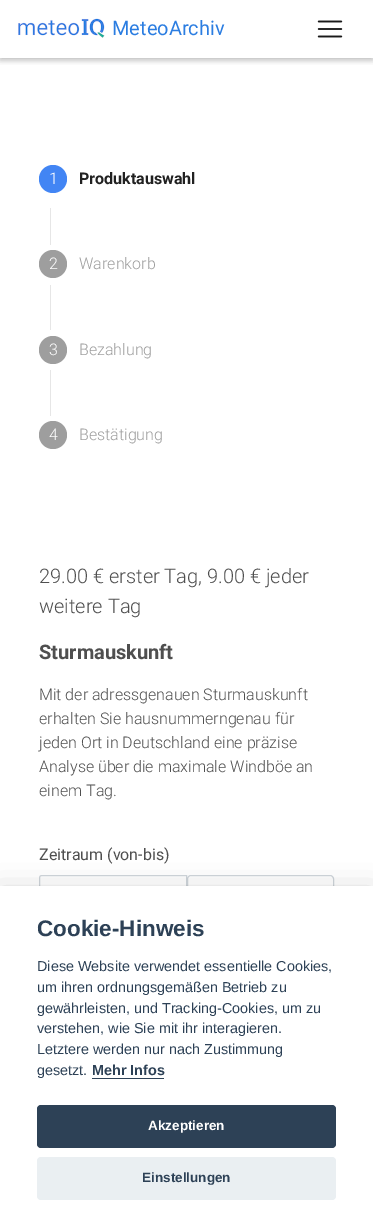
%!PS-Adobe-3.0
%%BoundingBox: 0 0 373 1230
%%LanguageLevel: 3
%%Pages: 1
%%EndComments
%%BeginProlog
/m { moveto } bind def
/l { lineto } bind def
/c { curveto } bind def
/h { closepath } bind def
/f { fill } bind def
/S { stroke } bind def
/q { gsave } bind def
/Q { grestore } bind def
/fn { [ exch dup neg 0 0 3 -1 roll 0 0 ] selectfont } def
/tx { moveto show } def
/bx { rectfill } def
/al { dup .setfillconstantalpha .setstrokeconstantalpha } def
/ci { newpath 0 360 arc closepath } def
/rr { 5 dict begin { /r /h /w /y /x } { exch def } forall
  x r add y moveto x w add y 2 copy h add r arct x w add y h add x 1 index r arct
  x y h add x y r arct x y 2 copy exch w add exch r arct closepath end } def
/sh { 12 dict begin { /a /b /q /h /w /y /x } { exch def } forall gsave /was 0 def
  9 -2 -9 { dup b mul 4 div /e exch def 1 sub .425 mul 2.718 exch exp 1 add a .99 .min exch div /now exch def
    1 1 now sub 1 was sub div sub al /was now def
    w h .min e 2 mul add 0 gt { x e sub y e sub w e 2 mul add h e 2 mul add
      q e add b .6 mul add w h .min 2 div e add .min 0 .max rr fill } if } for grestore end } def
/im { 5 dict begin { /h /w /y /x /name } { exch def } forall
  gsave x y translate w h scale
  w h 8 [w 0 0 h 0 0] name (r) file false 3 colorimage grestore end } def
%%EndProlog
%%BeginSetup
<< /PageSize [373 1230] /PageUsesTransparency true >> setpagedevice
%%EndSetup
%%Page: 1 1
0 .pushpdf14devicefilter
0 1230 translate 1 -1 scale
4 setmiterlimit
1 setgray
0 0 373 1230 bx
q
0 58 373 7 rectclip
0 setgray
0 2 373 58 0 5 0.12 sh
Q
q
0 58 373 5 rectclip
0 setgray
0 2 373 58 0 2.5 0.16 sh
Q
(image0.raw) 18 18 87 20 im
/Roboto-Regular 20 fn
0.169 0.49 0.882 setrgbcolor
(MeteoArchiv) 112 35 tx
(image1.raw) 317 20 26 18 im
0.259 0.522 0.957 setrgbcolor
53 179 14 ci f
/Roboto-Light 16 fn
1 setgray
(1) 49 184 tx
/Roboto-Bold 16 fn
0.129 setgray
(Produktauswahl) 79 184 tx
0.902 setgray
50 208 1 37 bx
0.62 setgray
53 264 14 ci f
/Roboto-Light 16 fn
1 setgray
(2) 49 269 tx
0.62 setgray
(Warenkorb) 79 269 tx
0.902 setgray
50 285 1 45 bx
0.62 setgray
53 350 14 ci f
1 setgray
(3) 49 355 tx
0.62 setgray
(Bezahlung) 79 355 tx
0.902 setgray
50 370 1 46 bx
0.62 setgray
53 435 14 ci f
1 setgray
(4) 49 440 tx
0.62 setgray
(Bestätigung) 79 440 tx
/Roboto-Light 20 fn
0.31 setgray
(29.00 € erster Tag, 9.00 € jeder) 39 583 tx
(weitere Tag) 39 613 tx
/Roboto-Bold 20 fn
(Sturmauskunft) 39 659 tx
/Roboto-Light 16 fn
(Mit der adressgenauen Sturmauskunft) 39 700 tx
(erhalten Sie hausnummerngenau für) 39 724 tx
(jeden Ort in Deutschland eine präzise) 39 748 tx
(Analyse über die maximale Windböe an) 39 772 tx
(einem Tag.) 39 796 tx
/Roboto-Regular 16 fn
(Zeitraum \(von-bis\)) 39 860 tx
0.808 0.831 0.855 setrgbcolor
42 875.5 m 186.5 875.5 l 186.5 912.5 l 42 912.5 l 40.5 912.5 39.5 911.5 39.5 910 c 39.5 878 l 39.5 876.5 40.5 875.5 42 875.5 c h S
187.5 875.5 146 37 3.5 rr S
0.008 0.008 0.012 setrgbcolor
0 896 373 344 0 15 0.28 sh
1 setgray
0 886 373 344 bx
/LiberationSans-Bold 22.5 fn
0.176 0.255 0.337 setrgbcolor
(Cookie-Hinweis) 37 936 tx
/LiberationSans-Regular 14.4 fn
(Diese Website verwendet essentielle Cookies,) 37 971 tx
(um ihren ordnungsgemäßen Betrieb zu) 37 992 tx
(gewährleisten, und Tracking-Cookies, um zu) 37 1013 tx
(verstehen, wie Sie mit ihr interagieren.) 37 1033 tx
(Letztere werden nur nach Zustimmung) 37 1054 tx
(gesetzt.) 37 1075 tx
/LiberationSans-Bold 14.4 fn
(Mehr Infos) 92 1075 tx
92 1078 72 1 bx
37 1105 299 43 4 rr f
/LiberationSans-Bold 13.5 fn
1 setgray
(Akzeptieren) 148 1130 tx
0.918 0.937 0.949 setrgbcolor
37 1157 299 43 4 rr f
0.176 0.255 0.337 setrgbcolor
(Einstellungen) 142 1182 tx
.poppdf14devicefilter showpage
%%EOF
